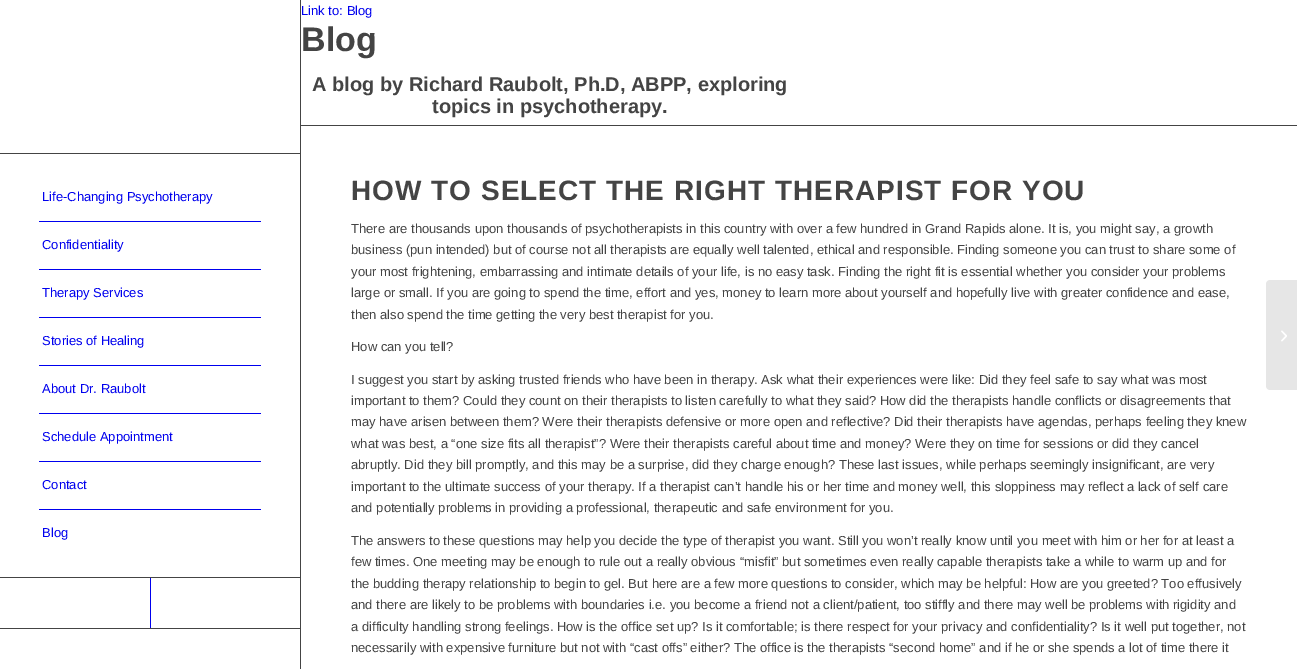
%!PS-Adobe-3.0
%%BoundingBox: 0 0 1297 669
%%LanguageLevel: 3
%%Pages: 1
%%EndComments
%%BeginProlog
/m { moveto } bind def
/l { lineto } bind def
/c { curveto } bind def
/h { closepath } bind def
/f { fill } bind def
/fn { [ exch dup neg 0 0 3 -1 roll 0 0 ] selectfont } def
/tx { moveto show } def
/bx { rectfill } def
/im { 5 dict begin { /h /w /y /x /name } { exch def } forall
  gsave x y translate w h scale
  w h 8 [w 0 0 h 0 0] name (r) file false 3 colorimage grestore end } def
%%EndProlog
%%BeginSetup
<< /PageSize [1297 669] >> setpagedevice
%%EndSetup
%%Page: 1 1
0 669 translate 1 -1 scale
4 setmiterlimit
1 setgray
0 0 1297 669 bx
0.267 setgray
0 628 300 1 bx
0 153 300 1 bx
0 0 0.933 setrgbcolor
39 221 222 1 bx
/LiberationSans-Regular 13 fn
(Life-Changing Psychotherapy) 42 201 tx
39 269 222 1 bx
(Confidentiality) 42 249 tx
39 317 222 1 bx
(Therapy Services) 42 297 tx
39 365 222 1 bx
(Stories of Healing) 42 345 tx
39 413 222 1 bx
(About Dr. Raubolt) 42 393 tx
39 461 222 1 bx
(Schedule Appointment) 42 441 tx
39 509 222 1 bx
(Contact) 42 489 tx
(Blog) 42 537 tx
0.267 setgray
0 577 300 1 bx
0 0 0.933 setrgbcolor
150 578 1 50 bx
0.267 setgray
300 0 1 669 bx
0 0 0.933 setrgbcolor
(Link to: Blog) 301 15 tx
/LiberationSans-Bold 34 fn
0.267 setgray
(Blog) 301 51 tx
/LiberationSans-Bold 20 fn
(A blog by Richard Raubolt, Ph.D, ABPP, exploring) 312 91 tx
(topics in psychotherapy.) 432 113 tx
301 125 996 1 bx
/LiberationSans-Bold 28 fn
351 200 m 1 0 (HOW TO SELECT THE RIGHT THERAPIST FOR YOU) ashow
/LiberationSans-Regular 13 fn
(There are thousands upon thousands of psychotherapists in this country with over a few hundred in Grand Rapids alone. It is, you might say, a growth) 351 233 tx
(business \(pun intended\) but of course not all therapists are equally well talented, ethical and responsible. Finding someone you can trust to share some of) 351 254 tx
(your most frightening, embarrassing and intimate details of your life, is no easy task. Finding the right fit is essential whether you consider your problems) 351 276 tx
(large or small. If you are going to spend the time, effort and yes, money to learn more about yourself and hopefully live with greater confidence and ease,) 351 297 tx
(then also spend the time getting the very best therapist for you.) 351 319 tx
(How can you tell?) 351 351 tx
(I suggest you start by asking trusted friends who have been in therapy. Ask what their experiences were like: Did they feel safe to say what was most) 351 384 tx
(important to them? Could they count on their therapists to listen carefully to what they said? How did the therapists handle conflicts or disagreements that) 351 405 tx
(may have arisen between them? Were their therapists defensive or more open and reflective? Did their therapists have agendas, perhaps feeling they knew) 351 426 tx
(what was best, a “one size fits all therapist”? Were their therapists careful about time and money? Were they on time for sessions or did they cancel) 351 448 tx
(abruptly. Did they bill promptly, and this may be a surprise, did they charge enough? These last issues, while perhaps seemingly insignificant, are very) 351 469 tx
(important to the ultimate success of your therapy. If a therapist can’t handle his or her time and money well, this sloppiness may reflect a lack of self care) 351 491 tx
(and potentially problems in providing a professional, therapeutic and safe environment for you.) 351 512 tx
(The answers to these questions may help you decide the type of therapist you want. Still you won’t really know until you meet with him or her for at least a) 351 545 tx
(few times. One meeting may be enough to rule out a really obvious “misfit” but sometimes even really capable therapists take a while to warm up and for) 351 566 tx
(the budding therapy relationship to begin to gel. But here are a few more questions to consider, which may be helpful: How are you greeted? Too effusively) 351 588 tx
(and there are likely to be problems with boundaries i.e. you become a friend not a client/patient, too stiffly and there may well be problems with rigidity and) 351 609 tx
(a difficulty handling strong feelings. How is the office set up? Is it comfortable; is there respect for your privacy and confidentiality? Is it well put together, not) 351 631 tx
(necessarily with expensive furniture but not with “cast offs” either? The office is the therapists “second home” and if he or she spends a lot of time there it) 351 652 tx
0.902 setgray
1270 280 m 1297 280 l 1297 390 l 1270 390 l 1268 390 1266 388 1266 386 c 1266 284 l 1266 282 1268 280 1270 280 c h f
(image0.raw) 1281 330 6 12 im
showpage
%%EOF
